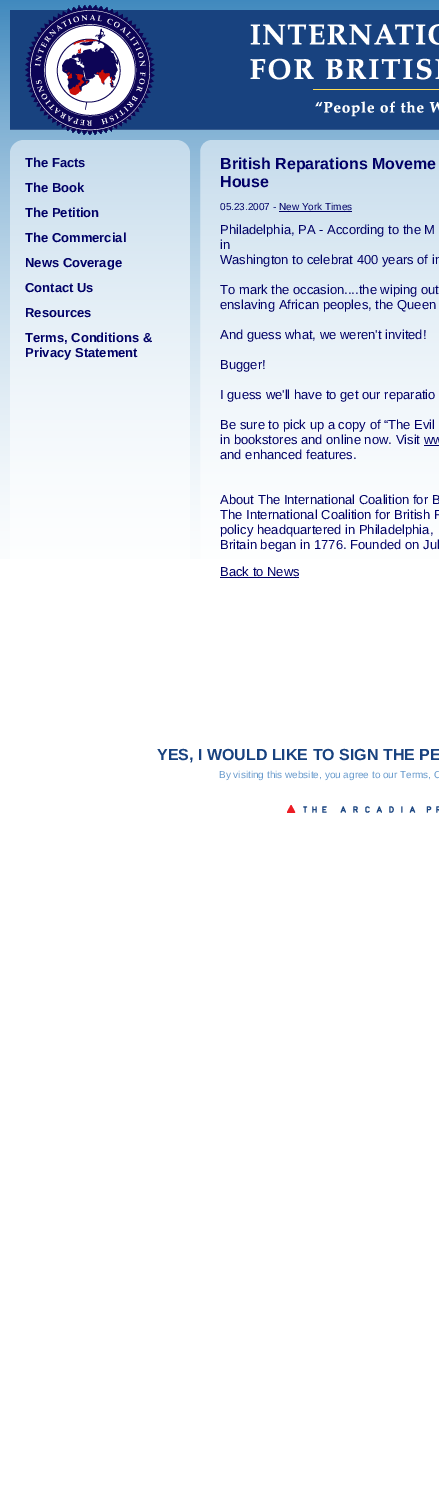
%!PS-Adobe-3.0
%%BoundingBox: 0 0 439 1485
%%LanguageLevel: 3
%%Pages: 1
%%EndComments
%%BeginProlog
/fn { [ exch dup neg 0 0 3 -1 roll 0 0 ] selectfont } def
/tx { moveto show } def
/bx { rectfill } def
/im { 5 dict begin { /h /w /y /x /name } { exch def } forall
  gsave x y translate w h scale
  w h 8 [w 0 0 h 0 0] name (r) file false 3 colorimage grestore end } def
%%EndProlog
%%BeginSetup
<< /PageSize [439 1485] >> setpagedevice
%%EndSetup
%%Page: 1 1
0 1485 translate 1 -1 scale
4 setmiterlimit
1 setgray
0 0 439 1485 bx
(image0.raw) 0 0 439 140 im
0.094 0.259 0.498 setrgbcolor
10 10 429 119 bx
0.216 0.361 0.565 setrgbcolor
10 129 429 1 bx
(image1.raw) 25 5 130 130 im
(image2.raw) 250 24 189 93 im
(image3.raw) 0 140 439 419 im
/LiberationSans-Bold 13 fn
0 0 0.4 setrgbcolor
(The Facts) 25 167 tx
(The Book) 25 192 tx
(The Petition) 25 217 tx
(The Commercial) 25 242 tx
(News Coverage) 25 267 tx
(Contact Us) 25 292 tx
(Resources) 25 317 tx
(Terms, Conditions &) 25 342 tx
(Privacy Statement) 25 357 tx
/LiberationSans-Bold 16 fn
(British Reparations Moveme) 220 169 tx
(House) 220 187 tx
/LiberationSans-Regular 10 fn
(05.23.2007 - New York Times) 220 210 tx
279 211 73 1 bx
/LiberationSans-Regular 13 fn
(Philadelphia, PA - According to the M) 220 234 tx
(in) 220 249 tx
(Washington to celebrat 400 years of in) 220 264 tx
(To mark the occasion....the wiping out) 220 294 tx
(enslaving African peoples, the Queen) 220 309 tx
(And guess what, we weren't invited!) 220 339 tx
(Bugger!) 220 369 tx
(I guess we'll have to get our reparatio) 220 399 tx
(Be sure to pick up a copy of “The Evil) 220 429 tx
(in bookstores and online now. Visit ww) 220 444 tx
424 445 15 1 bx
(and enhanced features.) 220 459 tx
(About The International Coalition for B) 220 504 tx
(The International Coalition for British R) 220 519 tx
(policy headquartered in Philadelphia,) 220 534 tx
(Britain began in 1776. Founded on Jul) 220 549 tx
(Back to News) 220 576 tx
220 577 79 1 bx
/LiberationSans-Bold 16 fn
0.094 0.259 0.498 setrgbcolor
(YES, I WOULD LIKE TO SIGN THE PE) 157 760 tx
/LiberationSans-Regular 10 fn
0.4 0.6 0.8 setrgbcolor
(By visiting this website, you agree to our Terms, C) 219 778 tx
(image4.raw) 287 805 152 8 im
showpage
%%EOF
